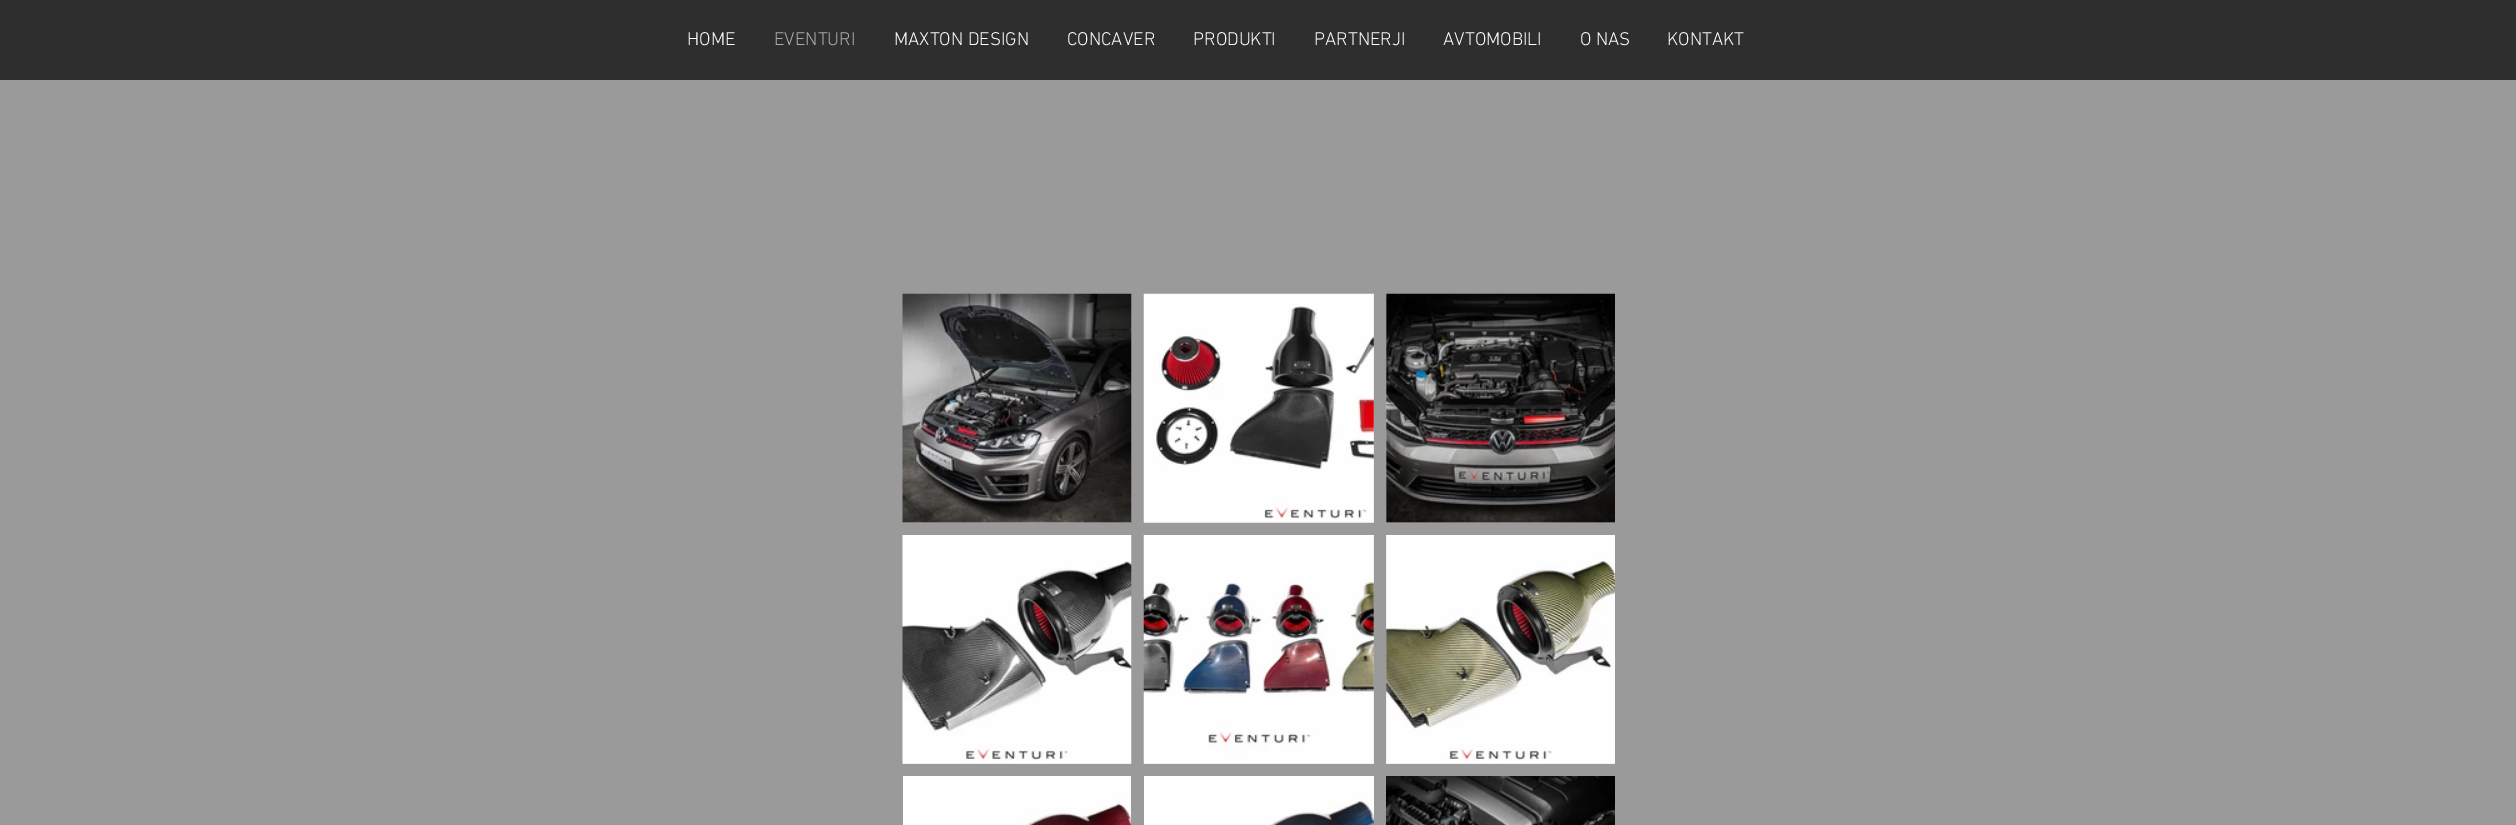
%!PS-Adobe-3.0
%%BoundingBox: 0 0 2516 825
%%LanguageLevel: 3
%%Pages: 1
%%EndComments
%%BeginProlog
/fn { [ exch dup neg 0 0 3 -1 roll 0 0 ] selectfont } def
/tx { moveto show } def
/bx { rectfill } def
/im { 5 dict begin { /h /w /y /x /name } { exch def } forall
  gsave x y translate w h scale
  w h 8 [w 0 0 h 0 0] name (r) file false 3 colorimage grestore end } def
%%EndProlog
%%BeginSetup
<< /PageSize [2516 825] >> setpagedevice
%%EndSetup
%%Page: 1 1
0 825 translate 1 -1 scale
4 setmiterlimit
0.604 setgray
0 0 2516 825 bx
0.184 0.18 0.18 setrgbcolor
0 0 2516 80 bx
/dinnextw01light-Light 18.75 fn
1 setgray
(HOME) 687 45 tx
0.69 0.667 0.663 setrgbcolor
(EVENTURI) 774 45 tx
1 setgray
(MAXTON DESIGN) 894 45 tx
(CONCAVER) 1067 45 tx
(PRODUKTI) 1193 45 tx
(PARTNERJI) 1314 45 tx
(AVTOMOBILI) 1443 45 tx
(O NAS) 1580 45 tx
(KONTAKT) 1667 45 tx
0.82 0.792 0.788 setrgbcolor
903 522 228 1 bx
(image0.raw) 902 293 230 230 im
1144 294 230 229 bx
(image1.raw) 1143 293 231 230 im
1386 294 229 229 bx
(image2.raw) 1386 293 229 230 im
(image3.raw) 902 535 230 229 im
1144 535 230 229 bx
(image4.raw) 1143 535 231 229 im
1386 535 229 229 bx
(image5.raw) 1386 535 229 229 im
(image6.raw) 903 776 228 49 im
(image7.raw) 1144 776 230 49 im
(image8.raw) 1386 776 229 49 im
showpage
%%EOF
